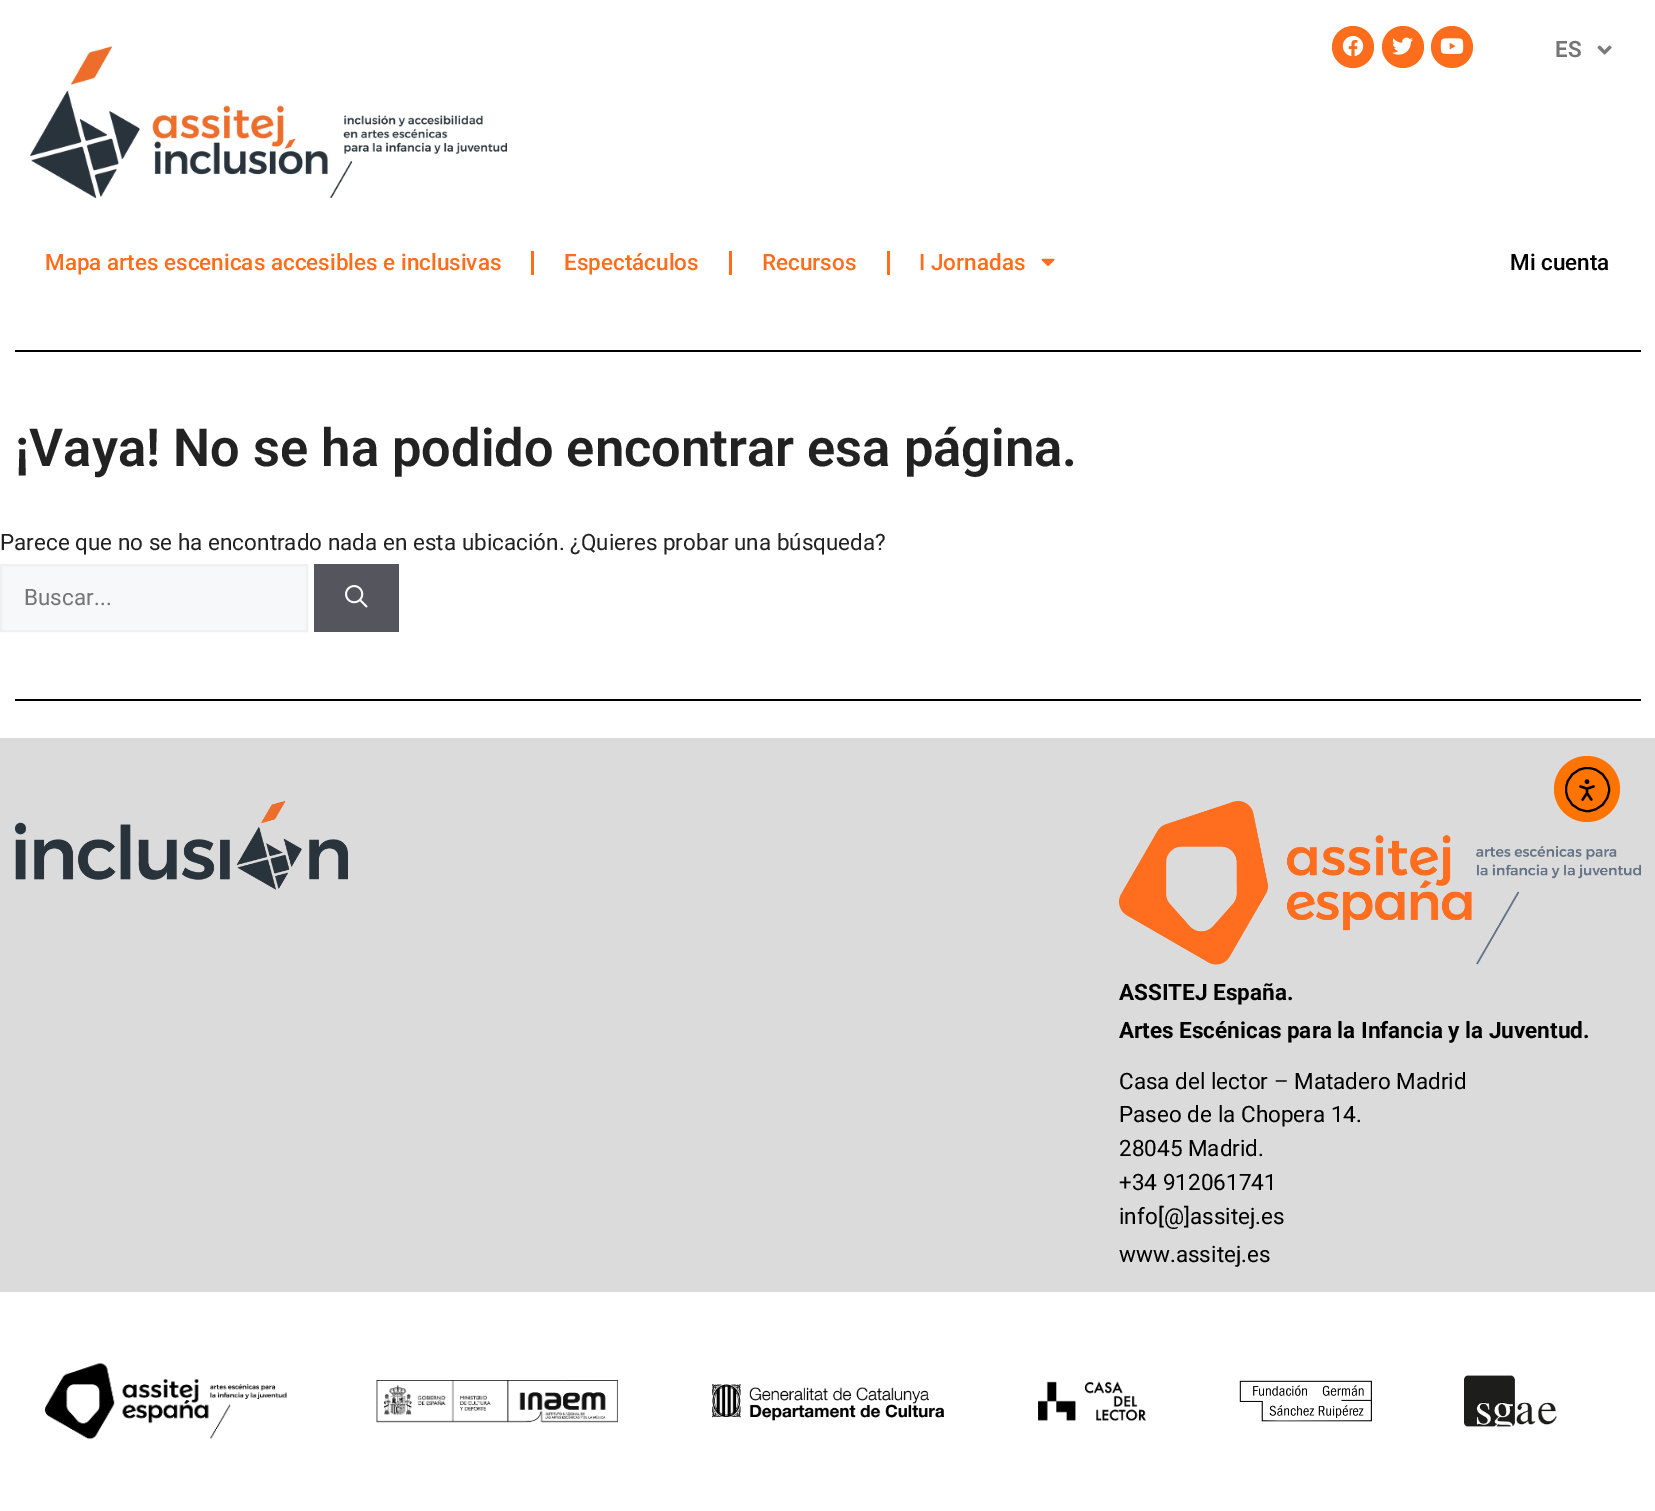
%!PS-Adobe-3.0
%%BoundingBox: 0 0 1655 1511
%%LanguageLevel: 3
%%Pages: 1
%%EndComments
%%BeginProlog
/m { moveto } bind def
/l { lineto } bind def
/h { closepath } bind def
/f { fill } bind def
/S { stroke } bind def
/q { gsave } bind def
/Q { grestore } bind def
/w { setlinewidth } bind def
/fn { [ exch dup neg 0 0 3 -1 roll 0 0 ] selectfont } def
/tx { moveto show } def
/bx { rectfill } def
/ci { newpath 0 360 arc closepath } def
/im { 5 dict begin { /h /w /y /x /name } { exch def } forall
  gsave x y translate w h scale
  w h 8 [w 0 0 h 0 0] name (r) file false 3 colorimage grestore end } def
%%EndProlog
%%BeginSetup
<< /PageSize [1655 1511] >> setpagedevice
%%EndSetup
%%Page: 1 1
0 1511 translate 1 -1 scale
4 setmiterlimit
1 setgray
0 0 1655 1511 bx
(image0.raw) 30 46 477 152 im
0.996 0.427 0.106 setrgbcolor
1353 47 21 ci f
(image1.raw) 1342 36 22 21 im
1403 47 21 ci f
(image2.raw) 1392 37 21 18 im
1452 47 21 ci f
(image3.raw) 1440 38 24 16 im
/Roboto-SemiBold 22.5 fn
0.459 setgray
(ES) 1555 57 tx
(image4.raw) 1597 45 15 10 im
/Roboto-Medium 22.5 fn
0.996 0.427 0.106 setrgbcolor
(Mapa artes escenicas accesibles e inclusivas) 45 270 tx
531 251 3 24 bx
(Espectáculos) 564 270 tx
729 251 3 24 bx
(Recursos) 762 270 tx
887 251 3 24 bx
(I Jornadas) 919 270 tx
(image5.raw) 1041 258 14 9 im
0 setgray
(Mi cuenta) 1510 270 tx
15 350 1626 2 bx
/Roboto-SemiBold 52.5 fn
0.133 setgray
(¡Vaya! No se ha podido encontrar esa página.) 15 466 tx
/Roboto-Regular 22.5 fn
(Parece que no se ha encontrado nada en esta ubicación. ¿Quieres probar una búsqueda?) 0 550 tx
0.969 0.973 0.976 setrgbcolor
1 565 m 307 565 l 307 631 l 1 631 l h q f Q
0.941 setgray
2 w
S
0.459 setgray
(Buscar...) 24 605 tx
0.333 0.333 0.369 setrgbcolor
314 564 85 68 bx
(image6.raw) 345 585 23 23 im
0.859 setgray
0 738 1655 554 bx
(image9.raw) 1119 801 522 164 im
1 0.451 0 setrgbcolor
1587 789 33 ci f
0 setgray
1587.5 789.5 21.5 ci S
(image7.raw) 1579 779 16 22 im
15 699 1626 2 bx
(image8.raw) 15 801 333 89 im
/Roboto-Bold 22.5 fn
(ASSITEJ España.) 1119 1000 tx
(Artes Escénicas para la Infancia y la Juventud.) 1119 1038 tx
/Roboto-Regular 22.5 fn
(Casa del lector – Matadero Madrid) 1119 1089 tx
(Paseo de la Chopera 14.) 1119 1122 tx
(28045 Madrid.) 1119 1156 tx
(+34 912061741) 1119 1190 tx
(info[@]assitej.es) 1119 1224 tx
(www.assitej.es) 1119 1262 tx
(image10.raw) 45 1363 242 77 im
(image11.raw) 376 1380 242 43 im
(image12.raw) 712 1384 233 37 im
(image13.raw) 1038 1381 109 40 im
(image14.raw) 1239 1380 133 42 im
(image15.raw) 1464 1375 93 52 im
showpage
%%EOF
